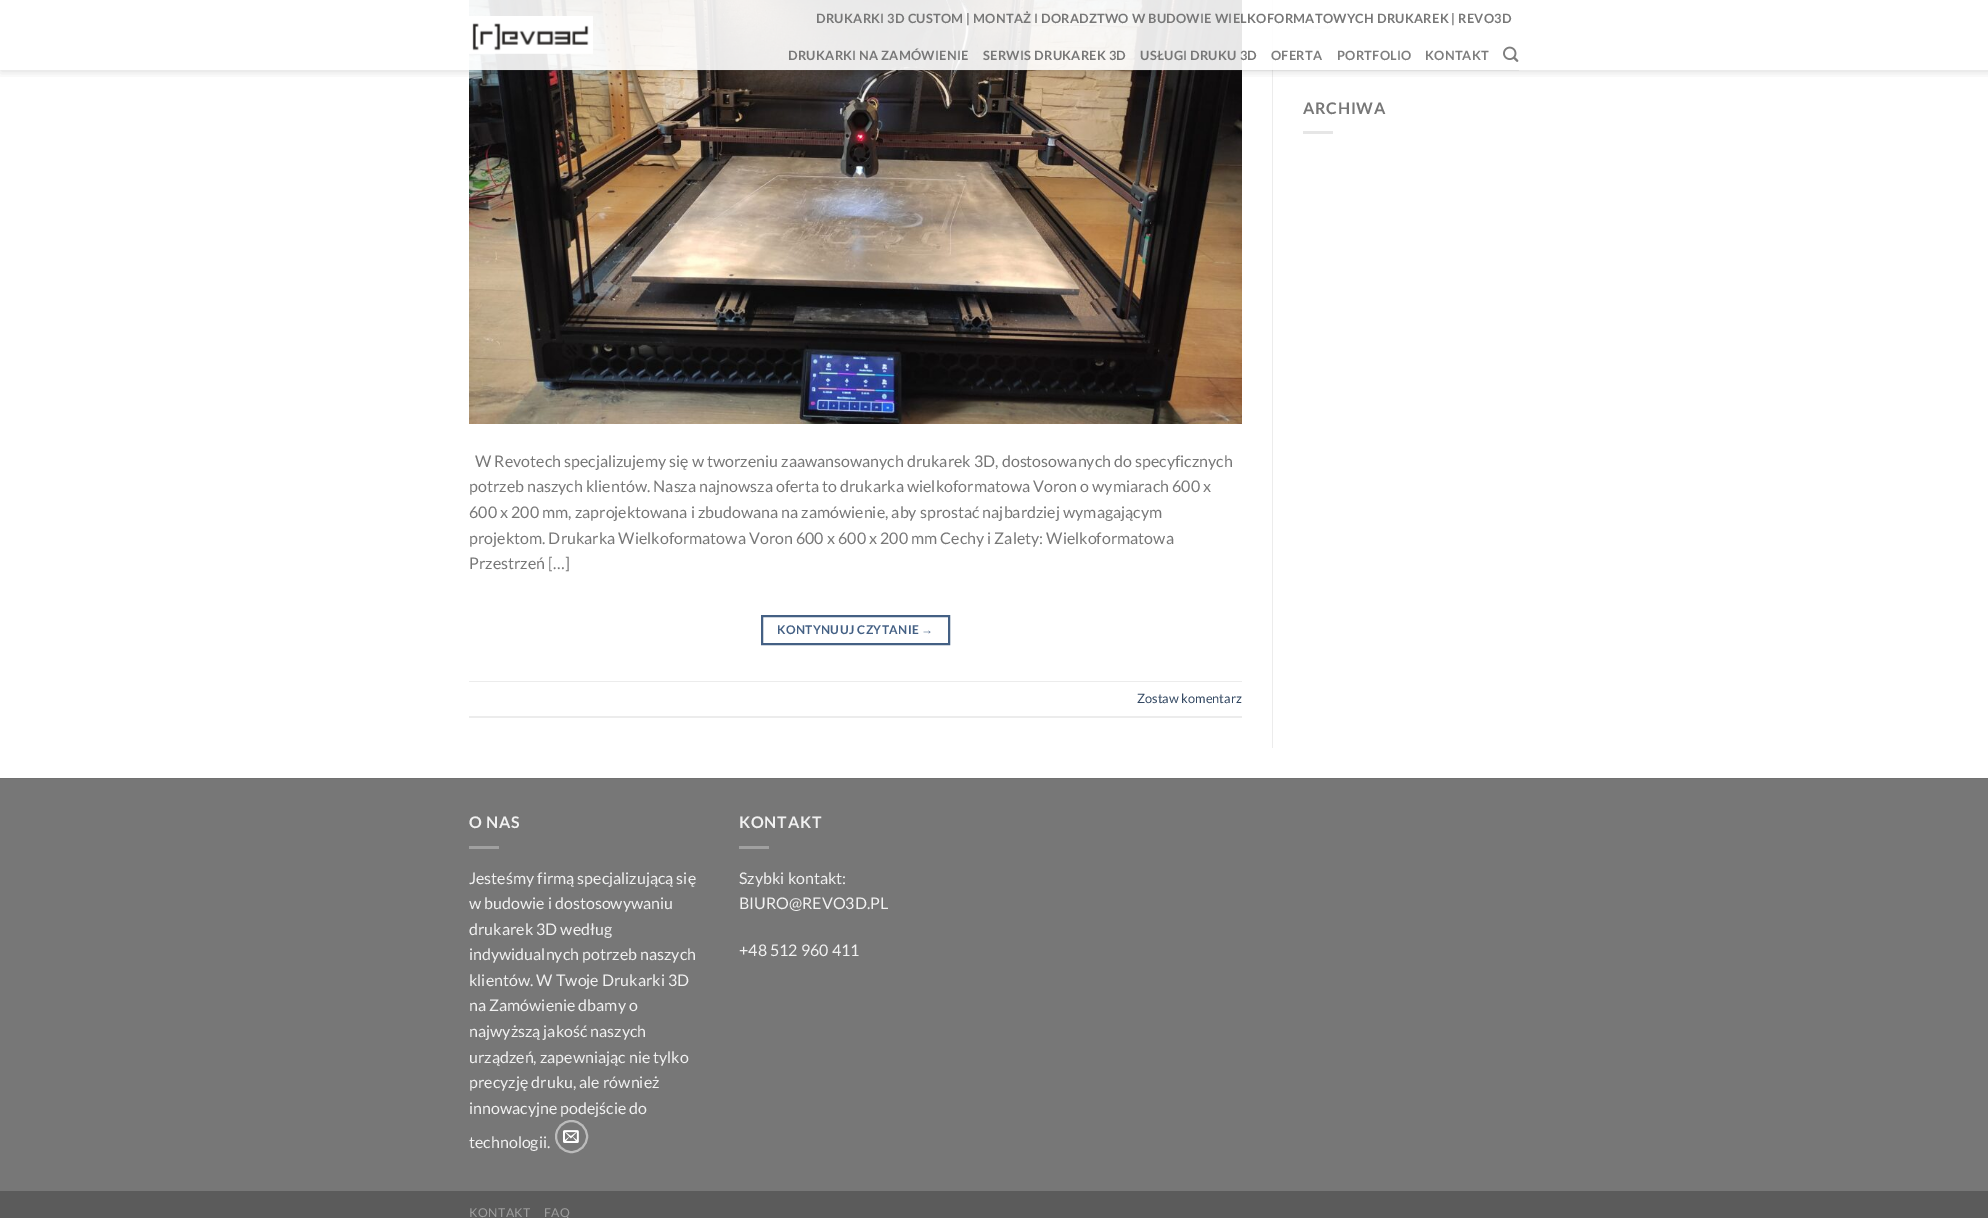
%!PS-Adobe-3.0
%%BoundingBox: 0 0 1988 1218
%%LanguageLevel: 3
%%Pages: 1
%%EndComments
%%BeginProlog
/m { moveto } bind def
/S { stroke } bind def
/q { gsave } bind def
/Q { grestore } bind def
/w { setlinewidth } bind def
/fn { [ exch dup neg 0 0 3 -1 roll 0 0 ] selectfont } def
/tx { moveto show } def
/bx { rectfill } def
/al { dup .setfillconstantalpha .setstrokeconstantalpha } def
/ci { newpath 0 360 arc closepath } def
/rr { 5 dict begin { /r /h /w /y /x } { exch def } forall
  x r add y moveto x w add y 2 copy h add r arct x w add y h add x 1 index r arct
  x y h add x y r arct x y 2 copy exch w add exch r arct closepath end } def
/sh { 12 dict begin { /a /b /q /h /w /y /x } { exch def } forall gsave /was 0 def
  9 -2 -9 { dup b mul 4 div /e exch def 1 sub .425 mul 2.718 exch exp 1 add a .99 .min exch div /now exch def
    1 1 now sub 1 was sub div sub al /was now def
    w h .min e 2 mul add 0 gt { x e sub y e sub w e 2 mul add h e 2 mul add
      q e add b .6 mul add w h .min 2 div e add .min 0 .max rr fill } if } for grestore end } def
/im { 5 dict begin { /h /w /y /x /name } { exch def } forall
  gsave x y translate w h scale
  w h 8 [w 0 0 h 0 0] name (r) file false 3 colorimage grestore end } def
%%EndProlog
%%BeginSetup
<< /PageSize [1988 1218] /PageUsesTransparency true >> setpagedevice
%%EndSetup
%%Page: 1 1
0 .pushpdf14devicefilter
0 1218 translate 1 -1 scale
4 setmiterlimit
1 setgray
0 0 1988 1218 bx
0.925 setgray
1272 0 1 748 bx
0.902 setgray
1303 26 30 3 bx
(image2.raw) 469 0 773 424 im
q
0 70 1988 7 rectclip
0 setgray
1 1 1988 70 0 5 0.15 sh
Q
0.9 al
1 setgray
469 0 864 70 bx
1 al
(image0.raw) 469 16 124 38 im
/Lato-Bold 12.8 fn
0.467 setgray
816 23 m 0.25 0 (DRUKARKI 3D CUSTOM | MONTAŻ I DORADZTWO W BUDOWIE WIELKOFORMATOWYCH DRUKAREK | REVO3D) ashow
788 60 m 0.25 0 (DRUKARKI NA ZAMÓWIENIE) ashow
983 60 m 0.25 0 (SERWIS DRUKAREK 3D) ashow
1140 60 m 0.25 0 (USŁUGI DRUKU 3D) ashow
0.49 setgray
1271 60 m 0.25 0 (OFERTA) ashow
1337 60 m 0.25 0 (PORTFOLIO) ashow
1425 60 m 0.25 0 (KONTAKT) ashow
(image1.raw) 1503 46 16 16 im
0.1 al
0.467 setgray
469 70 1050 1 bx
/Lato-Bold 16 fn
1 al
1303 114 m 0.75 0 (ARCHIWA) ashow
0.902 setgray
1303 131 30 3 bx
/Lato-Regular 16 fn
0.467 setgray
(W Revotech specjalizujemy się w tworzeniu zaawansowanych drukarek 3D, dostosowanych do specyficznych) 475 467 tx
(potrzeb naszych klientów. Nasza najnowsza oferta to drukarka wielkoformatowa Voron o wymiarach 600 x) 469 492 tx
(600 x 200 mm, zaprojektowana i zbudowana na zamówienie, aby sprostać najbardziej wymagającym) 469 518 tx
(projektom. Drukarka Wielkoformatowa Voron 600 x 600 x 200 mm Cechy i Zalety: Wielkoformatowa) 469 544 tx
(Przestrzeń […]) 469 569 tx
0.267 0.376 0.518 setrgbcolor
2 w
762 616 187 28 rectstroke
/Lato-Bold 12 fn
777 634 m 0.4 0 (KONTYNUUJ CZYTANIE) ashow
/LiberationSans-Bold 12 fn
921 634 m 0.4 0 (→) ashow
0.925 setgray
469 681 773 1 bx
469 716 773 2 bx
/Lato-Regular 12.8 fn
0.2 0.282 0.384 setrgbcolor
(Zostaw komentarz) 1137 703 tx
0.467 setgray
0 779 1988 412 bx
0.443 setgray
0 778 1988 1 bx
/Lato-Bold 16 fn
0.945 setgray
469 828 m 0.75 0 (O NAS) ashow
0.627 setgray
469 846 30 3 bx
/Lato-Regular 16 fn
0.945 setgray
(Jesteśmy firmą specjalizującą się) 469 884 tx
(w budowie i dostosowywaniu) 469 909 tx
(drukarek 3D według) 469 935 tx
(indywidualnych potrzeb naszych) 469 960 tx
(klientów. W Twoje Drukarki 3D) 469 986 tx
(na Zamówienie dbamy o) 469 1011 tx
(najwyższą jakość naszych) 469 1037 tx
(urządzeń, zapewniając nie tylko) 469 1063 tx
(precyzję druku, ale również) 469 1088 tx
(innowacyjne podejście do) 469 1114 tx
(technologii.) 469 1148 tx
0.733 setgray
571.5 1136.5 15.5 ci S
(image3.raw) 563 1130 16 13 im
/Lato-Bold 16 fn
0.945 setgray
739 828 m 0.75 0 (KONTAKT) ashow
0.627 setgray
739 846 30 3 bx
/Lato-Regular 16 fn
0.945 setgray
(Szybki kontakt:) 739 884 tx
(BIURO@REVO3D.PL) 739 909 tx
(+48 512 960 411) 739 956 tx
0.357 setgray
0 1191 1988 27 bx
/Lato-Regular 12.25 fn
0.616 setgray
469 1217 m 0.5 0 (KONTAKT) ashow
544 1217 m 0.5 0 (FAQ) ashow
.poppdf14devicefilter showpage
%%EOF
